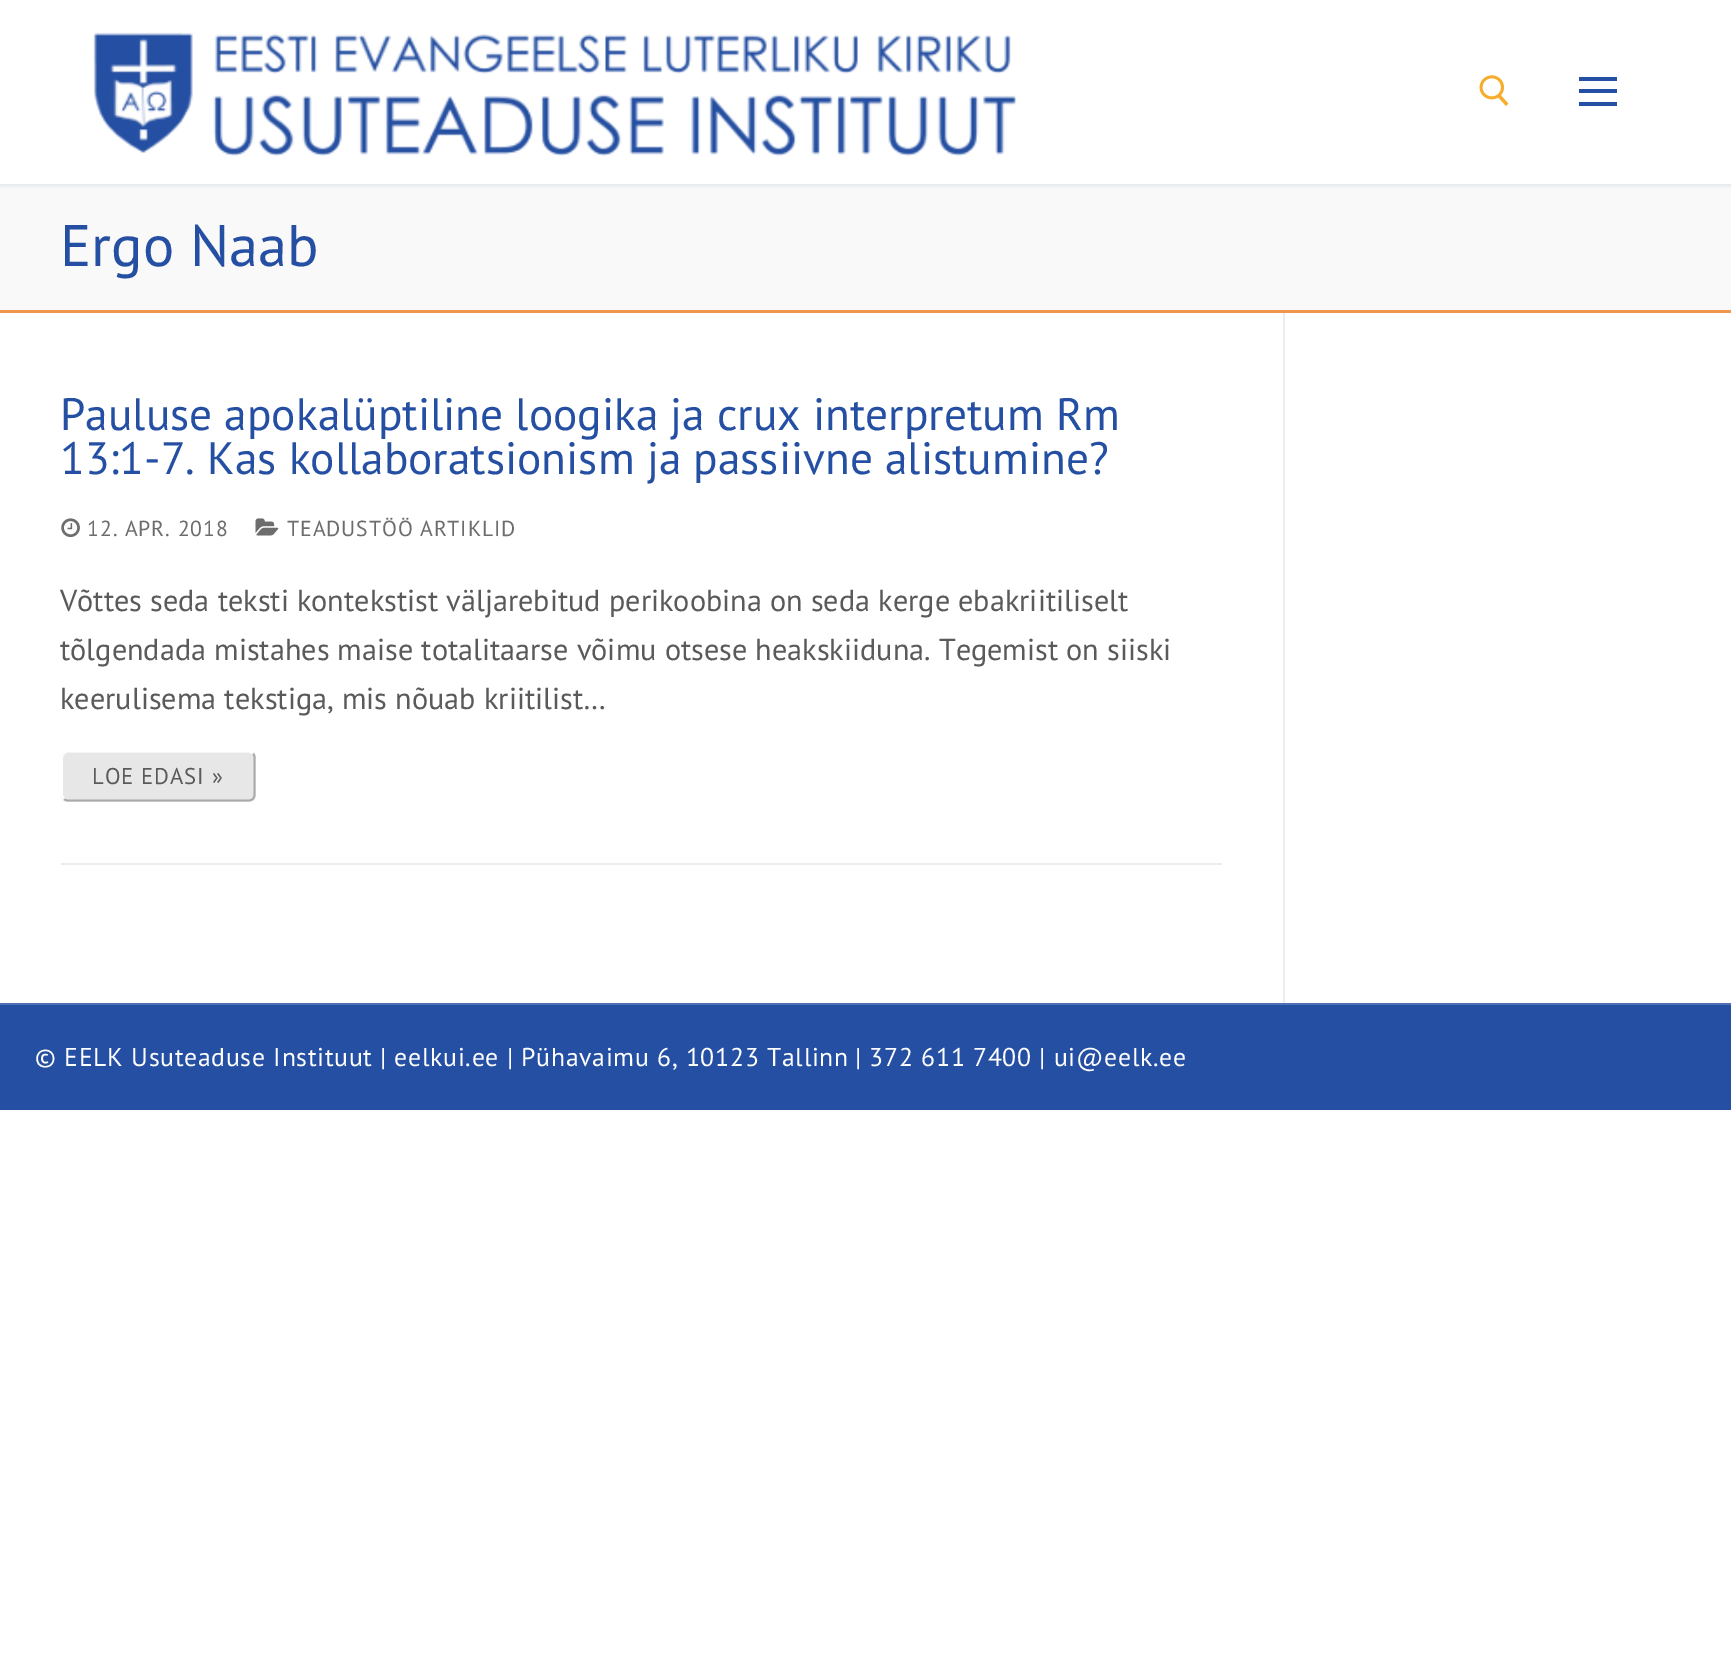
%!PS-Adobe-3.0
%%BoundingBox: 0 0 1731 1675
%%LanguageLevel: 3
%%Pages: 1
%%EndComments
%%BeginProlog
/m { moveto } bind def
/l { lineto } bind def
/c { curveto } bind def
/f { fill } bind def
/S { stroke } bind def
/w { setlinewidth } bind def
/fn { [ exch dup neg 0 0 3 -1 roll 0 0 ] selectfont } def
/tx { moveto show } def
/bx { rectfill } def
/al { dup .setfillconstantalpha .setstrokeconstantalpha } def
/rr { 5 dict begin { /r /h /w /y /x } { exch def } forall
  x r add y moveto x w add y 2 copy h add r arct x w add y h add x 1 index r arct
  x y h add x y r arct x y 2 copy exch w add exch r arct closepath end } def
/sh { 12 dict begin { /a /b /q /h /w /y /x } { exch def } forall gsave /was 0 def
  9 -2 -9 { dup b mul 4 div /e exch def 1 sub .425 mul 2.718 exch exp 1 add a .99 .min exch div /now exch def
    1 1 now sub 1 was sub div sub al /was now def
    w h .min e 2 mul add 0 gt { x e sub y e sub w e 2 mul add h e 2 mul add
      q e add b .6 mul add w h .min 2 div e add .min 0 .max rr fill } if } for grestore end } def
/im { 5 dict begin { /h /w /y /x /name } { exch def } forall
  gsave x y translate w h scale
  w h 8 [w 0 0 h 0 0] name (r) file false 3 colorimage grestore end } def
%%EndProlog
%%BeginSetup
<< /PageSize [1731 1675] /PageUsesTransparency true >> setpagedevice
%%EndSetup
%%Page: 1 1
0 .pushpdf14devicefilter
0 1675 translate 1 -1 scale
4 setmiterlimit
1 setgray
0 0 1731 1675 bx
0.976 setgray
0 184 1731 126 bx
0.882 0.898 0.918 setrgbcolor
0 2 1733 184 0 2 1 sh
1 setgray
0 0 1731 184 bx
(image0.raw) 93 32 924 124 im
(image1.raw) 1479 75 30 31 im
0.145 0.31 0.639 setrgbcolor
1579 89 38 4 bx
1579 77 38 4 bx
1579 102 38 4 bx
0.941 0.592 0.31 setrgbcolor
0 310 1731 3 bx
/PTSans-Regular 58.5 fn
0.145 0.31 0.639 setrgbcolor
(Ergo Naab) 60 266 tx
0.918 0.925 0.933 setrgbcolor
1283 313 2 690 bx
61 863 1161 2 bx
/PTSans-Regular 45.4 fn
0.145 0.31 0.639 setrgbcolor
(Pauluse apokalüptiline loogika ja crux interpretum Rm) 60 430 tx
(13:1-7. Kas kollaboratsionism ja passiivne alistumine?) 60 474 tx
(image2.raw) 61 518 19 20 im
/PTSans-Regular 21.75 fn
0.427 setgray
87 536 m 0.9 0 (12. APR. 2018) ashow
(image3.raw) 255 518 24 18 im
287 536 m 0.9 0 (TEADUSTÖÖ ARTIKLID) ashow
/PTSans-Regular 30.25 fn
0.353 setgray
(Võttes seda teksti kontekstist väljarebitud perikoobina on seda kerge ebakriitiliselt) 60 611 tx
(tõlgendada mistahes maise totalitaarse võimu otsese heakskiiduna. Tegemist on siiski) 60 660 tx
(keerulisema tekstiga, mis nõuab kriitilist…) 60 709 tx
0.906 setgray
61 751 195 51 7 rr f
0.667 setgray
1.8 w
253 753.5 m 254 754.5 254.5 756 254.5 758 c 254.5 794.5 l 254.5 796 254 797.5 253 799 c 251.5 800 250 800.5 248.5 800.5 c 68 800.5 l 66.5 800.5 65 800 64 799 c S
1 setgray
64 799 m 63 797.5 62 796 62 794.5 c 62 758 l 62 756 63 754.5 64 753.5 c 65 752.5 66.5 751.5 68 751.5 c 248.5 751.5 l 250 751.5 251.5 752.5 253 753.5 c S
/PTSans-Regular 22.75 fn
0.353 setgray
92 784 m 0.9 0 (LOE EDASI ») ashow
0.145 0.31 0.639 setrgbcolor
0 1005 1731 105 bx
0.306 0.439 0.706 setrgbcolor
0 1003 1731 2 bx
/PTSans-Regular 25.75 fn
1 setgray
35 1066 m 0.7 0 (© EELK Usuteaduse Instituut) ashow
380 1066 m 0.7 0 (| eelkui.ee | Pühavaimu 6, 10123 Tallinn) ashow
855 1066 m 0.7 0 (| 372 611 7400 | ui@eelk.ee) ashow
.poppdf14devicefilter showpage
%%EOF
